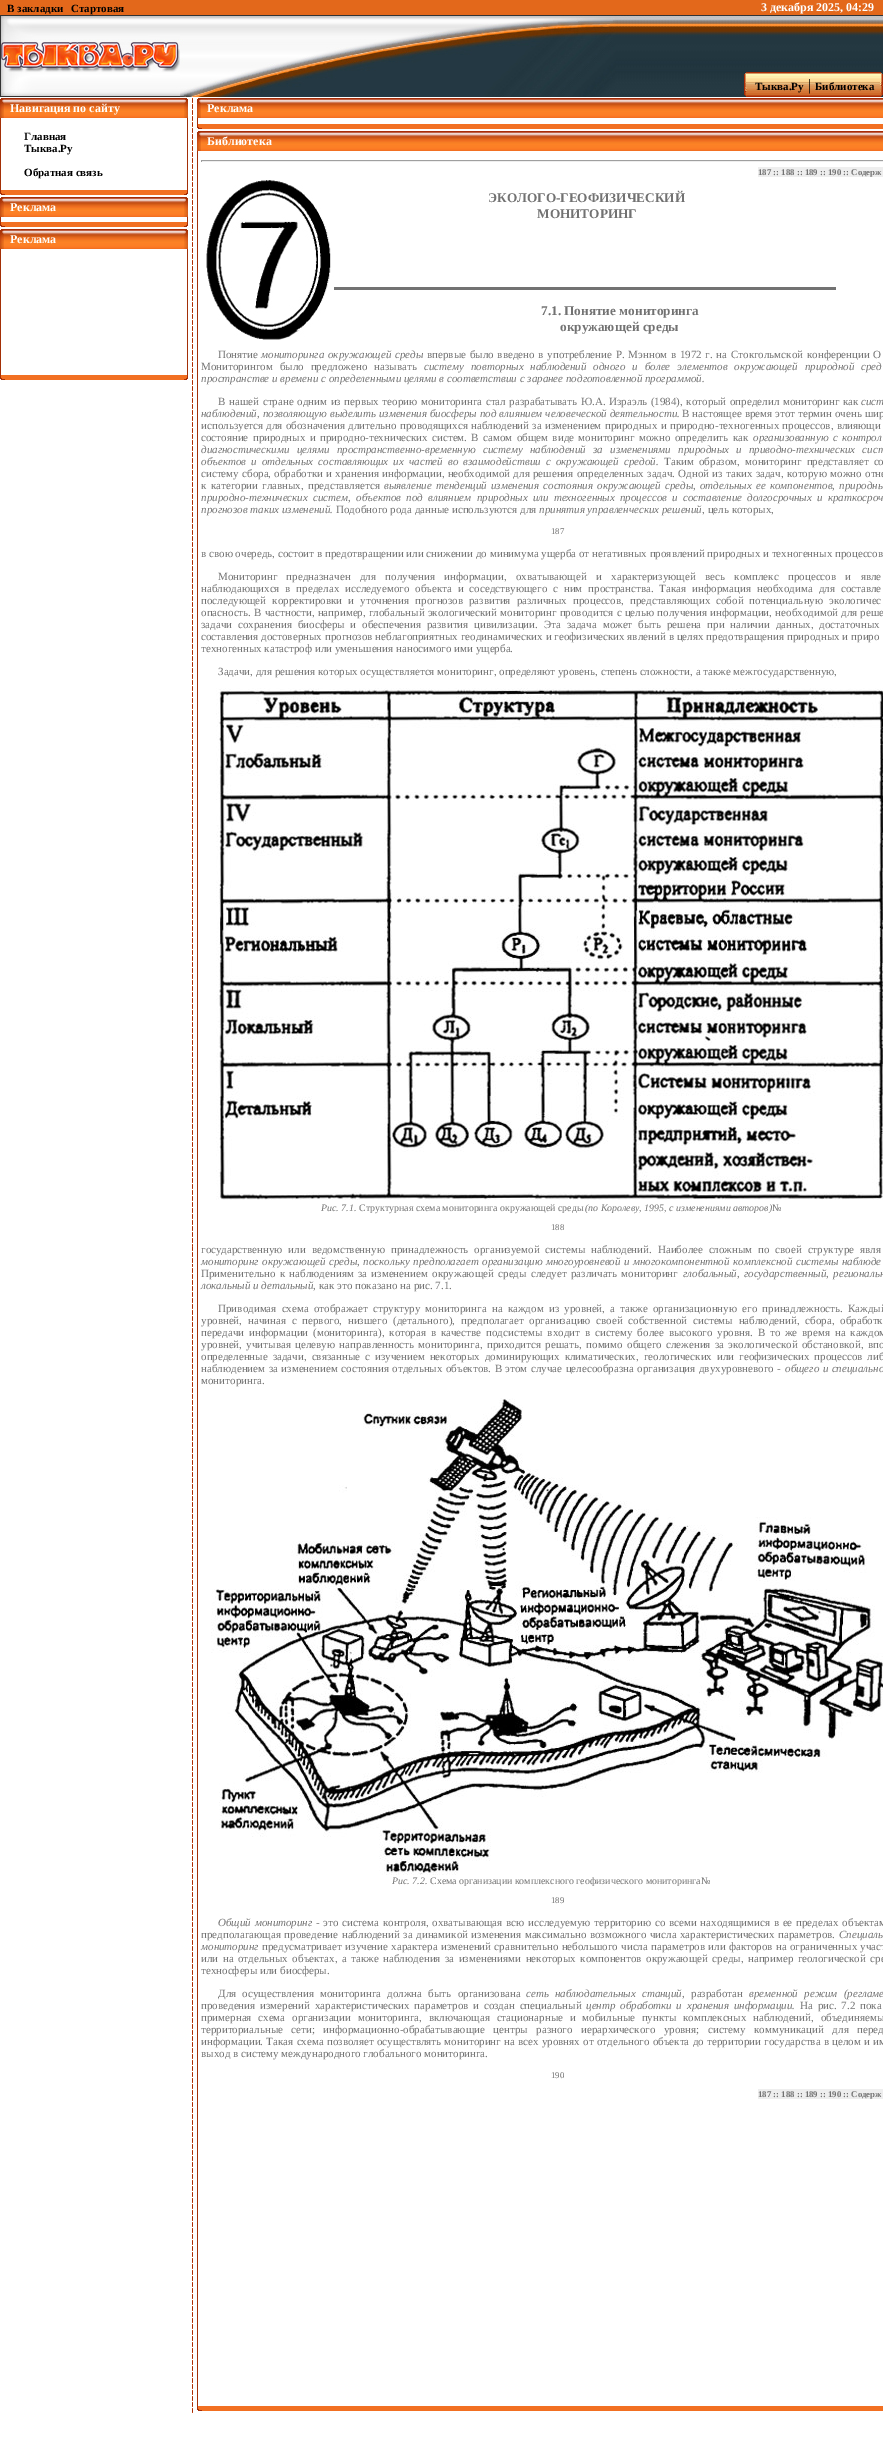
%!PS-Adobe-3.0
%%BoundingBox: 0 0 883 2460
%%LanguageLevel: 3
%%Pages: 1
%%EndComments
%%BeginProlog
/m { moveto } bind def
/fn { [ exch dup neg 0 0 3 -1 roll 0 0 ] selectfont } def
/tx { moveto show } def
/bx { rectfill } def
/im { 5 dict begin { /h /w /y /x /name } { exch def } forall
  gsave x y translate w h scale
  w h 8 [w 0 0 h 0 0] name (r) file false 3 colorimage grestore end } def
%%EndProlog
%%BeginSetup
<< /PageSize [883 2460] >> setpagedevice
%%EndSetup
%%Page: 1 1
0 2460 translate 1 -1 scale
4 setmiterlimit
1 setgray
0 0 883 2460 bx
0.89 0.408 0.106 setrgbcolor
0 0 883 15 bx
/LiberationSerif-Bold 11 fn
0 setgray
(В закладки) 7 12 tx
(Стартовая) 71 12 tx
/LiberationSerif-Bold 12 fn
1 setgray
(3 декабря 2025, 04:29) 761 11 tx
(image0.raw) 0 15 618 82 im
(image1.raw) 618 15 262 82 im
(image2.raw) 880 15 3 82 im
(image3.raw) 744 72 3 25 im
(image4.raw) 747 72 133 25 im
/LiberationSerif-Bold 11 fn
0 setgray
(Тыква.Ру) 755 90 tx
/LiberationSerif-Regular 16 fn
(|) 808 90 tx
/LiberationSerif-Bold 11 fn
(Библиотека) 815 90 tx
(image5.raw) 880 72 3 25 im
(image6.raw) 0 98 4 20 im
(image7.raw) 4 98 180 20 im
/LiberationSerif-Bold 12 fn
1 setgray
(Навигация по сайту) 10 112 tx
(image8.raw) 184 98 4 20 im
0.639 0.184 0.024 setrgbcolor
0 118 1 72 bx
/LiberationSerif-Bold 11 fn
0 setgray
(Главная) 24 140 tx
(Тыква.Ру) 24 152 tx
(Обратная связь) 24 176 tx
0.639 0.184 0.024 setrgbcolor
187 118 1 72 bx
(image9.raw) 0 190 4 5 im
0.949 0.439 0.133 setrgbcolor
4 190 180 5 bx
0.659 0.173 0.024 setrgbcolor
4 194 1 1 bx
(image10.raw) 184 190 4 5 im
(image6.raw) 0 197 4 20 im
(image7.raw) 4 197 180 20 im
/LiberationSerif-Bold 12 fn
1 setgray
(Реклама) 10 211 tx
(image8.raw) 184 197 4 20 im
0.639 0.184 0.024 setrgbcolor
0 217 1 5 bx
187 217 1 5 bx
(image9.raw) 0 222 4 5 im
0.949 0.439 0.133 setrgbcolor
4 222 180 5 bx
0.659 0.173 0.024 setrgbcolor
4 226 1 1 bx
(image10.raw) 184 222 4 5 im
(image6.raw) 0 229 4 20 im
(image7.raw) 4 229 180 20 im
1 setgray
(Реклама) 10 243 tx
(image8.raw) 184 229 4 20 im
0.639 0.184 0.024 setrgbcolor
0 249 1 126 bx
187 249 1 126 bx
(image9.raw) 0 375 4 5 im
0.949 0.439 0.133 setrgbcolor
4 375 180 5 bx
0.659 0.173 0.024 setrgbcolor
4 379 1 1 bx
(image10.raw) 184 375 4 5 im
(image11.raw) 192 98 1 2315 im
(image12.raw) 192 1246 1 18 im
(image6.raw) 197 98 4 20 im
(image13.raw) 201 98 682 20 im
1 setgray
(Реклама) 207 112 tx
0.639 0.184 0.024 setrgbcolor
197 118 1 6 bx
(image9.raw) 197 124 4 5 im
0.949 0.439 0.133 setrgbcolor
201 124 682 5 bx
0.659 0.173 0.024 setrgbcolor
201 128 1 1 bx
(image6.raw) 197 131 4 20 im
(image13.raw) 201 131 682 20 im
1 setgray
(Библиотека) 207 145 tx
0.639 0.184 0.024 setrgbcolor
197 151 1 2255 bx
0.624 setgray
201 160 682 1 bx
0.933 setgray
201 161 682 1 bx
0.624 setgray
201 160 1 2 bx
0.933 setgray
758 167 125 10 bx
/LiberationSerif-Bold 8.75 fn
0.447 setgray
(187 :: 188 :: 189 :: 190 :: Содерж) 758 175 tx
(image14.raw) 206 180 128 160 im
334 287 502 3 bx
/LiberationSerif-Bold 13.25 fn
(ЭКОЛОГО-ГЕОФИЗИЧЕСКИЙ) 488 202 tx
(МОНИТОРИНГ) 537 218 tx
(7.1. Понятие мониторинга) 541 315 tx
(окружающей среды) 560 331 tx
/LiberationSerif-Regular 11 fn
(Понятие) 218 358 tx
/LiberationSerif-Italic 11 fn
261 358 m 1 0 32 (мониторинга окружающей среды) widthshow
/LiberationSerif-Regular 11 fn
427 358 m 1 0 32 (впервые было введено в употребление Р. Мэнном в 1972 г. на Стокгольмской конференции О) widthshow
201 370 m 4.25 0 32 (Мониторингом было предложено называть) widthshow
/LiberationSerif-Italic 11 fn
424 370 m 4.25 0 32 (систему повторных наблюдений одного и более элементов окружающей природной сред) widthshow
(пространстве и времени с определенными целями в соответствии с заранее подготовленной программой.) 201 382 tx
/LiberationSerif-Regular 11 fn
218 405 m 0.9 0 32 (В нашей стране одним из первых теорию мониторинга стал разрабатывать Ю.А. Израэль \(1984\), который определил мониторинг как) widthshow
/LiberationSerif-Italic 11 fn
(сист) 861 405 tx
201 417 m 0.25 0 32 (наблюдений, позволяющую выделить изменения биосферы под влиянием человеческой деятельности.) widthshow
/LiberationSerif-Regular 11 fn
682 417 m 0.25 0 32 (В настоящее время этот термин очень шир) widthshow
201 429 m 0.5 0 32 (используется для обозначения длительно проводящихся наблюдений за изменением природных и природно-техногенных процессов, влияющи) widthshow
201 441 m 1.6 0 32 (состояние природных и природно-технических систем. В самом общем виде мониторинг можно определить как) widthshow
/LiberationSerif-Italic 11 fn
753 441 m 1.6 0 32 (организованную с контрол) widthshow
201 453 m 4.5 0 32 (диагностическими целями пространственно-временную систему наблюдений за изменениями природных и приводно-технических сист) widthshow
201 465 m 2.4 0 32 (объектов и отдельных составляющих их частей во взаимодействии с окружающей средой.) widthshow
/LiberationSerif-Regular 11 fn
664 465 m 2.4 0 32 (Таким образом, мониторинг представляет со) widthshow
201 477 m 0.5 0 32 (систему сбора, обработки и хранения информации, необходимой для решения определенных задач. Одной из таких задач, которую можно отне) widthshow
201 489 m 1.5 0 32 (к категории главных, представляется) widthshow
/LiberationSerif-Italic 11 fn
384 489 m 1.5 0 32 (выявление тенденций изменения состояния окружающей среды, отдельных ее компонентов, природны) widthshow
201 501 m 2.5 0 32 (природно-технических систем, объектов под влиянием природных или техногенных процессов и составление долгосрочных и краткосроч) widthshow
(прогнозов таких изменений.) 201 513 tx
/LiberationSerif-Regular 11 fn
(Подобного рода данные используются для) 336 513 tx
/LiberationSerif-Italic 11 fn
(принятия управленческих решений) 539 513 tx
/LiberationSerif-Regular 11 fn
(, цель которых,) 702 513 tx
/LiberationSerif-Regular 8.75 fn
(187) 551 534 tx
/LiberationSerif-Regular 11 fn
(в свою очередь, состоит в предотвращении или снижении до минимума ущерба от негативных проявлений природных и техногенных процессов) 201 557 tx
218 580 m 6.6 0 32 (Мониторинг предназначен для получения информации, охватывающей и характеризующей весь комплекс процессов и явле) widthshow
201 592 m 3.1 0 32 (наблюдающихся в пределах исследуемого объекта и соседствующего с ним пространства. Такая информация необходима для составле) widthshow
201 604 m 3.25 0 32 (последующей корректировки и уточнения прогнозов развития различных процессов, представляющих собой потенциальную экологичес) widthshow
201 616 m 0.4 0 32 (опасность. В частности, например, глобальный экологический мониторинг проводится с целью получения информации, необходимой для реше) widthshow
201 628 m 3.1 0 32 (задачи сохранения биосферы и обеспечения развития цивилизации. Эта задача может быть решена при наличии данных, достаточных) widthshow
201 640 m 0.1 0 32 (составления достоверных прогнозов неблагоприятных геодинамических и геофизических явлений в целях предотвращения природных и приро) widthshow
(техногенных катастроф или уменьшения наносимого ими ущерба.) 201 652 tx
(Задачи, для решения которых осуществляется мониторинг, определяют уровень, степень сложности, а также межгосударственную,) 218 675 tx
(image15.raw) 216 688 667 512 im
/LiberationSerif-Italic 9.9 fn
(Рис. 7.1.) 321 1211 tx
/LiberationSerif-Regular 9.9 fn
(Структурная схема мониторинга окружающей среды) 359 1211 tx
/LiberationSerif-Italic 9.9 fn
(\(по Королеву, 1995, с изменениями авторов\)) 585 1211 tx
/LiberationSerif-Regular 9.9 fn
(№) 772 1211 tx
/LiberationSerif-Regular 8.75 fn
(188) 551 1230 tx
/LiberationSerif-Regular 11 fn
201 1253 m 3.1 0 32 (государственную или ведомственную принадлежность организуемой системы наблюдений. Наиболее сложным по своей структуре явля) widthshow
/LiberationSerif-Italic 11 fn
201 1265 m 0.75 0 32 (мониторинг окружающей среды, поскольку предполагает организацию многоуровневой и многокомпонентной комплексной системы наблюде) widthshow
/LiberationSerif-Regular 11 fn
201 1277 m 1.5 0 32 (Применительно к наблюдениям за изменением окружающей среды следует различать мониторинг) widthshow
/LiberationSerif-Italic 11 fn
683 1277 m 1.5 0 32 (глобальный, государственный, региональн) widthshow
(локальный и детальный,) 201 1289 tx
/LiberationSerif-Regular 11 fn
(как это показано на рис. 7.1.) 319 1289 tx
218 1312 m 2.4 0 32 (Приводимая схема отображает структуру мониторинга на каждом из уровней, а также организационную его принадлежность. Каждый) widthshow
201 1324 m 3 0 32 (уровней, начиная с первого, низшего \(детального\), предполагает организацию своей собственной системы наблюдений, сбора, обработк) widthshow
201 1336 m 2.1 0 32 (передачи информации \(мониторинга\), которая в качестве подсистемы входит в систему более высокого уровня. В то же время на каждом) widthshow
201 1348 m 1.6 0 32 (уровней, учитывая целевую направленность мониторинга, приходится решать, помимо общего слежения за экологической обстановкой, впо) widthshow
201 1360 m 2.25 0 32 (определенные задачи, связанные с изучением некоторых доминирующих климатических, геологических или геофизических процессов либ) widthshow
201 1372 m 0.75 0 32 (наблюдением за изменением состояния отдельных объектов. В этом случае целесообразна организация двухуровневого -) widthshow
/LiberationSerif-Italic 11 fn
785 1372 m 0.75 0 32 (общего и специально) widthshow
/LiberationSerif-Regular 11 fn
(мониторинга.) 201 1384 tx
(image16.raw) 211 1398 672 477 im
/LiberationSerif-Italic 9.9 fn
(Рис. 7.2.) 392 1884 tx
/LiberationSerif-Regular 9.9 fn
(Схема организации комплексного геофизического мониторинга№) 430 1884 tx
/LiberationSerif-Regular 8.75 fn
(189) 551 1903 tx
/LiberationSerif-Italic 11 fn
218 1926 m 1 0 32 (Общий мониторинг -) widthshow
/LiberationSerif-Regular 11 fn
323 1926 m 1 0 32 (это система контроля, охватывающая всю исследуемую территорию со всеми находящимися в ее пределах объектам) widthshow
201 1938 m 0.75 0 32 (предполагающая проведение наблюдений за динамикой изменения максимально возможного числа характеристических параметров.) widthshow
/LiberationSerif-Italic 11 fn
(Специаль) 839 1938 tx
(мониторинг) 201 1950 tx
/LiberationSerif-Regular 11 fn
262 1950 m 0.5 0 32 (предусматривает изучение характера изменений сравнительно небольшого числа параметров или факторов на ограниченных участ) widthshow
201 1962 m 1.7 0 32 (или на отдельных объектах, а также наблюдения за изменениями некоторых компонентов окружающей среды, например геологической сре) widthshow
(техносферы или биосферы.) 201 1974 tx
218 1997 m 3.5 0 32 (Для осуществления мониторинга должна быть организована) widthshow
/LiberationSerif-Italic 11 fn
526 1997 m 3.5 0 32 (сеть наблюдательных станций,) widthshow
/LiberationSerif-Regular 11 fn
(разработан) 691 1997 tx
/LiberationSerif-Italic 11 fn
749 1997 m 3.5 0 32 (временной режим \(регламе) widthshow
/LiberationSerif-Regular 11 fn
201 2009 m 2 0 32 (проведения измерений характеристических параметров и создан специальный) widthshow
/LiberationSerif-Italic 11 fn
586 2009 m 2 0 32 (центр обработки и хранения информации.) widthshow
/LiberationSerif-Regular 11 fn
800 2009 m 2 0 32 (На рис. 7.2 пока) widthshow
201 2021 m 4 0 32 (примерная схема организации мониторинга, включающая стационарные и мобильные пункты комплексных наблюдений, объединяемы) widthshow
201 2033 m 5.75 0 32 (территориальные сети; информационно-обрабатывающие центры разного иерархического уровня; систему коммуникаций для перед) widthshow
201 2045 m 0.5 0 32 (информации. Такая схема позволяет осуществлять мониторинг на всех уровнях от отдельного объекта до территории государства в целом и им) widthshow
(выход в систему международного глобального мониторинга.) 201 2057 tx
/LiberationSerif-Regular 8.75 fn
(190) 551 2078 tx
0.933 setgray
758 2089 125 10 bx
/LiberationSerif-Bold 8.75 fn
0.447 setgray
(187 :: 188 :: 189 :: 190 :: Содерж) 758 2097 tx
(image9.raw) 197 2406 4 5 im
0.949 0.439 0.133 setrgbcolor
201 2406 682 5 bx
0.659 0.173 0.024 setrgbcolor
201 2410 1 1 bx
showpage
%%EOF
